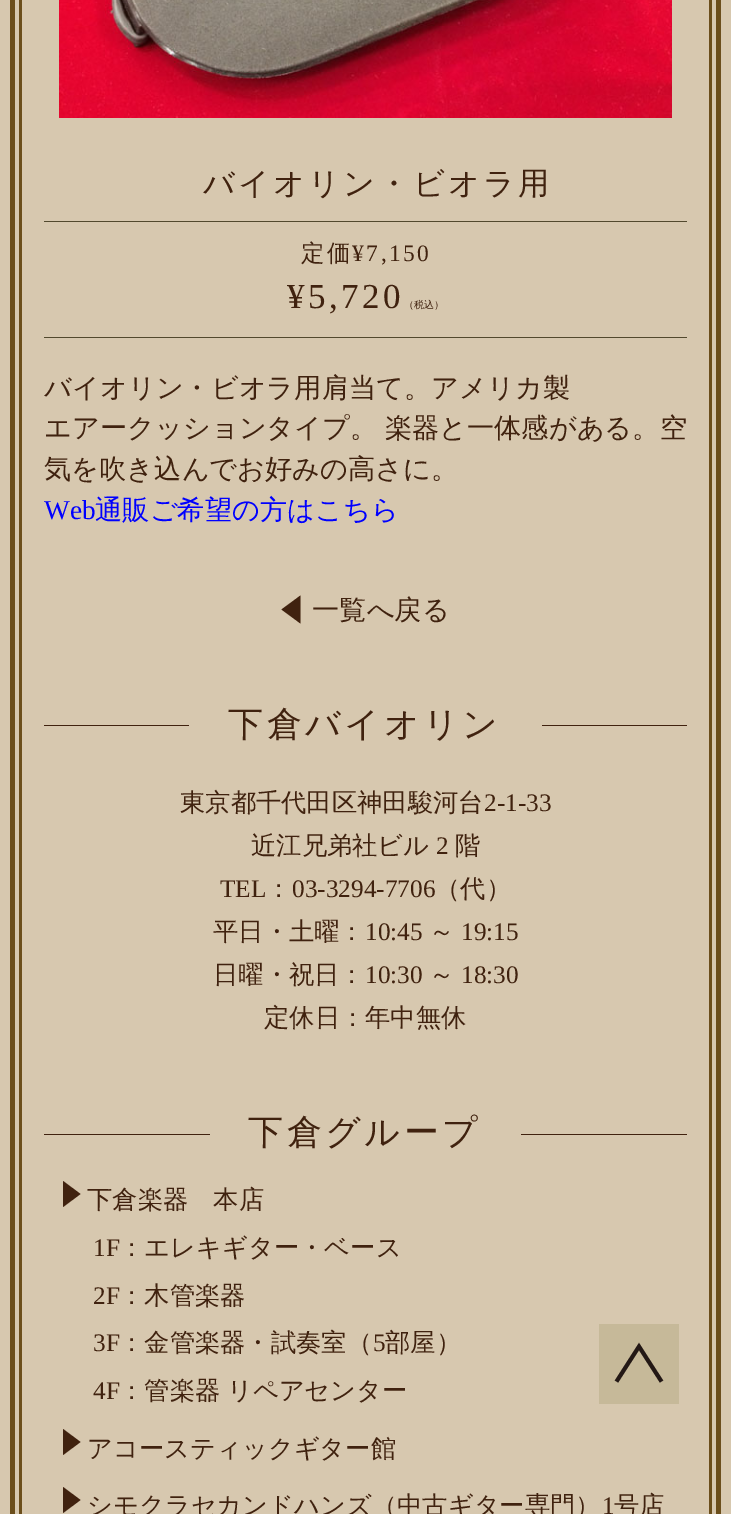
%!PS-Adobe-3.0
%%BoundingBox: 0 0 731 1514
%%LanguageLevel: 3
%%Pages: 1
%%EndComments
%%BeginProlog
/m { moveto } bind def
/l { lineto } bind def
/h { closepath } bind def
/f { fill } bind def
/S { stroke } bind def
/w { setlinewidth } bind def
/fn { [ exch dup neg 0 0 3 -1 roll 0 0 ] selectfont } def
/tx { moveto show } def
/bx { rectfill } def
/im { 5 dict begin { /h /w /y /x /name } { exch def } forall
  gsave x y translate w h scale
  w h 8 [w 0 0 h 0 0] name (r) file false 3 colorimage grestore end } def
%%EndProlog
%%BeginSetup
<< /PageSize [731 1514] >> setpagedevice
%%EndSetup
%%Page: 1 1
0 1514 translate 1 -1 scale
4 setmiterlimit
0.843 0.784 0.686 setrgbcolor
0 0 731 1514 bx
(image0.raw) 10 0 711 1514 im
(image1.raw) 19 0 693 1514 im
(image2.raw) 59 0 613 118 im
0.322 0.286 0.18 setrgbcolor
44 221 643 1 bx
/WenQuanYiZenHei-Medium 31.25 fn
0.251 0.133 0.059 setrgbcolor
203 194 m 3.1 0 (バイオリン・ビオラ用) ashow
0.322 0.286 0.18 setrgbcolor
44 337 643 1 bx
/WenQuanYiZenHei-Medium 23.5 fn
0.251 0.133 0.059 setrgbcolor
301 261 m 2.5 0 (定価) ashow
/LiberationSerif-Regular 23.5 fn
352 261 m 2.5 0 (¥7,150) ashow
/LiberationSerif-Regular 35 fn
287 308 m 3.5 0 (¥5,720) ashow
/WenQuanYiZenHei-Medium 10 fn
(（税込）) 404 308 tx
/WenQuanYiZenHei-Medium 27.25 fn
(バイオリン・ビオラ用肩当て。アメリカ製) 44 397 tx
44 437 m -1 0 32 (エアークッションタイプ。 楽器と一体感がある。空) widthshow
(気を吹き込んでお好みの高さに。) 44 478 tx
/LiberationSerif-Regular 27.25 fn
0 0 1 setrgbcolor
(Web) 44 519 tx
/WenQuanYiZenHei-Medium 27.25 fn
(通販ご希望の方はこちら) 95 519 tx
0.251 0.133 0.059 setrgbcolor
300.5 595.5 m 300.5 623.5 l 281.5 609.5 l h f
(一覧へ戻る) 312 619 tx
44 725 643 1 bx
0.843 0.784 0.686 setrgbcolor
189 725 353 1 bx
/WenQuanYiZenHei-Medium 35 fn
0.251 0.133 0.059 setrgbcolor
228 736 m 3.5 0 (下倉バイオリン) ashow
/WenQuanYiZenHei-Medium 25.3 fn
(東京都千代田区神田駿河台) 180 811 tx
/LiberationSerif-Regular 25.3 fn
(2-1-33) 484 811 tx
/WenQuanYiZenHei-Medium 25.3 fn
(近江兄弟社ビル) 251 854 tx
/LiberationSerif-Regular 25.3 fn
(2) 436 854 tx
/WenQuanYiZenHei-Medium 25.3 fn
(階) 455 854 tx
/LiberationSerif-Regular 25.3 fn
(TEL) 220 897 tx
/WenQuanYiZenHei-Medium 25.3 fn
(：) 266 897 tx
/LiberationSerif-Regular 25.3 fn
(03-3294-7706) 292 897 tx
/WenQuanYiZenHei-Medium 25.3 fn
(（代）) 435 897 tx
(平日・土曜：) 213 940 tx
/LiberationSerif-Regular 25.3 fn
(10:45) 365 940 tx
/WenQuanYiZenHei-Medium 25.3 fn
(～) 429 940 tx
/LiberationSerif-Regular 25.3 fn
(19:15) 461 940 tx
/WenQuanYiZenHei-Medium 25.3 fn
(日曜・祝日：) 213 983 tx
/LiberationSerif-Regular 25.3 fn
(10:30) 365 983 tx
/WenQuanYiZenHei-Medium 25.3 fn
(～) 429 983 tx
/LiberationSerif-Regular 25.3 fn
(18:30) 461 983 tx
/WenQuanYiZenHei-Medium 25.3 fn
(定休日：年中無休) 264 1026 tx
44 1134 643 1 bx
0.843 0.784 0.686 setrgbcolor
210 1134 311 1 bx
/WenQuanYiZenHei-Medium 35 fn
0.251 0.133 0.059 setrgbcolor
248 1144 m 3.5 0 (下倉グループ) ashow
63 1207 m 63 1181 l 80.5 1194 l h f
/WenQuanYiZenHei-Medium 25.3 fn
(下倉楽器　本店) 87 1208 tx
/LiberationSerif-Regular 25.3 fn
(1F) 93 1256 tx
/WenQuanYiZenHei-Medium 25.3 fn
(：エレキギター・ベース) 119 1256 tx
/LiberationSerif-Regular 25.3 fn
(2F) 93 1304 tx
/WenQuanYiZenHei-Medium 25.3 fn
(：木管楽器) 119 1304 tx
/LiberationSerif-Regular 25.3 fn
(3F) 93 1351 tx
/WenQuanYiZenHei-Medium 25.3 fn
(：金管楽器・試奏室（) 119 1351 tx
/LiberationSerif-Regular 25.3 fn
(5) 373 1351 tx
/WenQuanYiZenHei-Medium 25.3 fn
(部屋）) 385 1351 tx
/LiberationSerif-Regular 25.3 fn
(4F) 93 1399 tx
/WenQuanYiZenHei-Medium 25.3 fn
119 1399 m -1 0 32 (：管楽器 リペアセンター) widthshow
63 1455 m 63 1429 l 80.5 1442 l h f
(アコースティックギター館) 87 1457 tx
63 1513 m 63 1487 l 80.5 1500 l h f
(シモクラセカンドハンズ（中古ギター専門）) 87 1514 tx
/LiberationSerif-Regular 25.3 fn
(1) 602 1514 tx
/WenQuanYiZenHei-Medium 25.3 fn
(号店) 614 1514 tx
0.776 0.725 0.6 setrgbcolor
599 1324 80 80 bx
0.137 0.094 0.082 setrgbcolor
3.9 w
661.5 1381.5 m 639 1346.5 l 616.5 1381.5 l S
showpage
%%EOF
